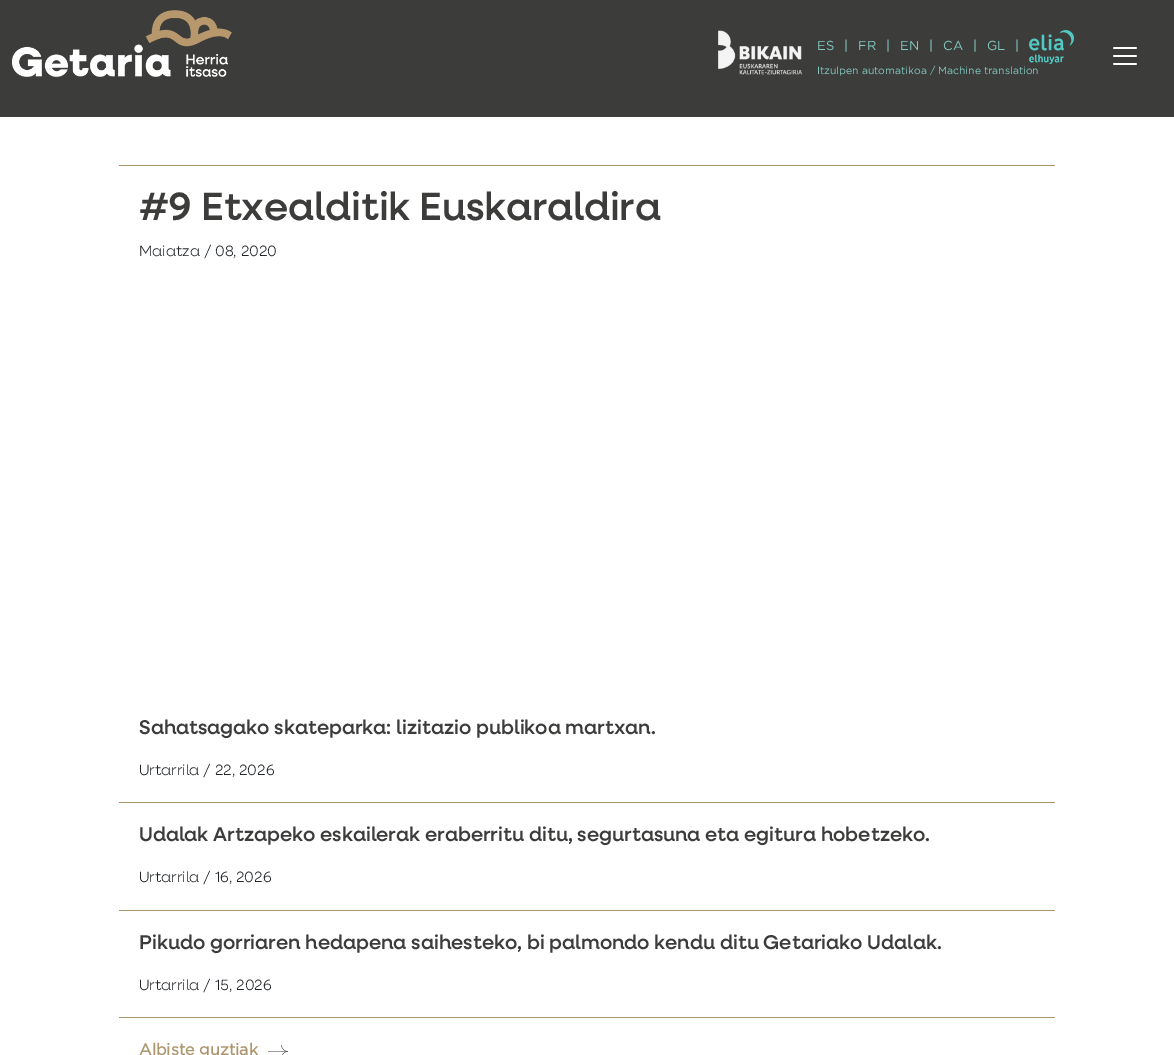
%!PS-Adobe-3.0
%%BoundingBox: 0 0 1174 1055
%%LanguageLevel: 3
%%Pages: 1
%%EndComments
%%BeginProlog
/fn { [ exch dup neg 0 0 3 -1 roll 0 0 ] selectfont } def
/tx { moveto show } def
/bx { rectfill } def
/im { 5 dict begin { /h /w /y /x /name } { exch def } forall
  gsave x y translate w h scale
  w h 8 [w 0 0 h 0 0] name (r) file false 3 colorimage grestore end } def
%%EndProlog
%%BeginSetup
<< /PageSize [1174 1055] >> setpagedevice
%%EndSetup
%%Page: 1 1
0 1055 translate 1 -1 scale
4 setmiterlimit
1 setgray
0 0 1174 1055 bx
0.235 0.235 0.231 setrgbcolor
0 0 1174 117 bx
(image0.raw) 12 10 220 67 im
(image1.raw) 718 30 84 45 im
/Gotham-Regular 13 fn
0.51 0.788 0.761 setrgbcolor
(ES) 817 50 tx
(|) 844 50 tx
(FR) 858 50 tx
(|) 886 50 tx
(EN) 900 50 tx
(|) 929 50 tx
(CA) 943 50 tx
(|) 973 50 tx
(GL) 987 50 tx
(|) 1015 50 tx
(image2.raw) 1029 30 45 34 im
/Gotham-Regular 10.4 fn
(Itzulpen automatikoa / Machine translation) 817 74 tx
(image3.raw) 1113 47 24 18 im
0.678 0.588 0.431 setrgbcolor
119 165 936 1 bx
/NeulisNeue-Medium 39.6 fn
0.235 0.235 0.231 setrgbcolor
(#9 Etxealditik Euskaraldira) 139 220 tx
/NeulisNeue-Light 15 fn
0.129 0.145 0.161 setrgbcolor
(Maiatza / 08, 2020) 139 256 tx
0.678 0.588 0.431 setrgbcolor
119 802 936 1 bx
/NeulisNeue-Medium 20 fn
0.235 0.235 0.231 setrgbcolor
(Sahatsagako skateparka: lizitazio publikoa martxan.) 139 734 tx
/NeulisNeue-Light 15 fn
0.129 0.145 0.161 setrgbcolor
(Urtarrila / 22, 2026) 139 775 tx
0.678 0.588 0.431 setrgbcolor
119 910 936 1 bx
/NeulisNeue-Medium 20 fn
0.235 0.235 0.231 setrgbcolor
(Udalak Artzapeko eskailerak eraberritu ditu, segurtasuna eta egitura hobetzeko.) 139 841 tx
/NeulisNeue-Light 15 fn
0.129 0.145 0.161 setrgbcolor
(Urtarrila / 16, 2026) 139 882 tx
0.678 0.588 0.431 setrgbcolor
119 1017 936 1 bx
/NeulisNeue-Medium 20 fn
0.235 0.235 0.231 setrgbcolor
(Pikudo gorriaren hedapena saihesteko, bi palmondo kendu ditu Getariako Udalak.) 139 949 tx
/NeulisNeue-Light 15 fn
0.129 0.145 0.161 setrgbcolor
(Urtarrila / 15, 2026) 139 990 tx
/Gotham-Bold 16 fn
0.678 0.588 0.431 setrgbcolor
(Albiste guztiak) 139 1055 tx
(image4.raw) 268 1045 20 10 im
showpage
%%EOF
